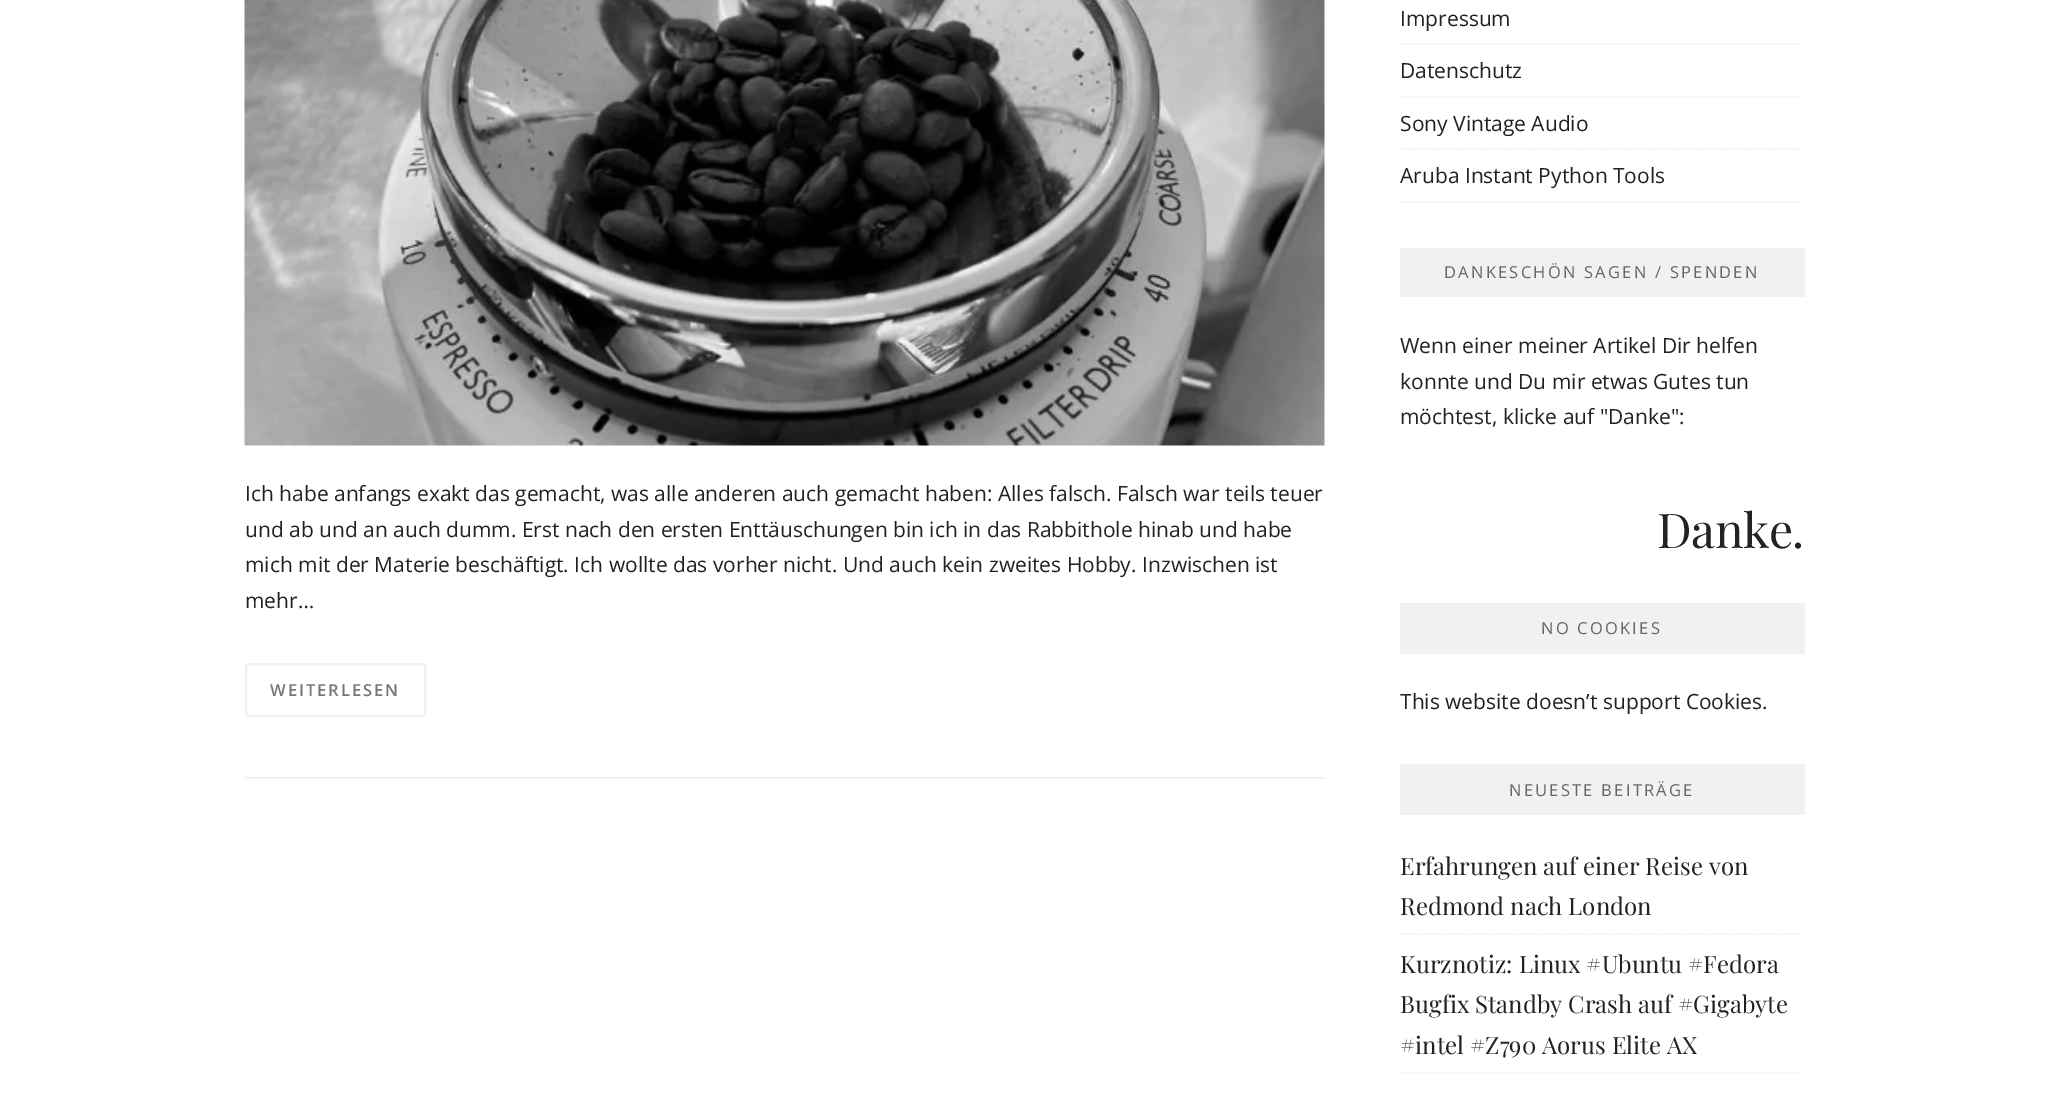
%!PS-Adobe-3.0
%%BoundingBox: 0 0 2049 1100
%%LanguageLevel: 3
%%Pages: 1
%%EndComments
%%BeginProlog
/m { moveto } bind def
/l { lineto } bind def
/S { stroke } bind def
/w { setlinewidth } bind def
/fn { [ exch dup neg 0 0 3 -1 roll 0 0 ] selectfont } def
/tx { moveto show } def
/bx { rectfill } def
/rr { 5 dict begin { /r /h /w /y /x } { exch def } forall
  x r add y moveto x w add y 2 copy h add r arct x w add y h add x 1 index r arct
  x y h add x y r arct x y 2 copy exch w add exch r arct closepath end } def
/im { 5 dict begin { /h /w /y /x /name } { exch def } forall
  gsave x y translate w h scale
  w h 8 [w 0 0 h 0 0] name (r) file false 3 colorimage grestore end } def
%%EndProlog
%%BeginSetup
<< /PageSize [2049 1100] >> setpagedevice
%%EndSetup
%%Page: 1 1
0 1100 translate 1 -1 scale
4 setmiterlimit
1 setgray
0 0 2049 1100 bx
0.945 setgray
245 777 1080 2 bx
(image0.raw) 244 0 1081 446 im
/OpenSans-Regular 21 fn
0.133 setgray
(Ich habe anfangs exakt das gemacht, was alle anderen auch gemacht haben: Alles falsch. Falsch war teils teuer) 245 501 tx
(und ab und an auch dumm. Erst nach den ersten Enttäuschungen bin ich in das Rabbithole hinab und habe) 245 537 tx
(mich mit der Materie beschäftigt. Ich wollte das vorher nicht. Und auch kein zweites Hobby. Inzwischen ist) 245 572 tx
(mehr…) 245 608 tx
0.945 setgray
2 w
246 664 179 52 2 rr S
/OpenSans-SemiBold 16.5 fn
0.467 setgray
270 696 m 2 0 (WEITERLESEN) ashow
0.945 setgray
1.5 w
[1.5 1.5] 0 setdash
1399.5 44 m 1804.5 44 l S
/OpenSans-Regular 21 fn
0.133 setgray
(Impressum) 1400 26 tx
0.945 setgray
1399.5 97 m 1804.5 97 l S
0.133 setgray
(Datenschutz) 1400 78 tx
0.945 setgray
1399.5 149 m 1804.5 149 l S
0.133 setgray
(Sony Vintage Audio) 1400 131 tx
0.945 setgray
1399.5 202 m 1804.5 202 l S
0.133 setgray
(Aruba Instant Python Tools) 1400 183 tx
0.945 setgray
1400 248 405 49 bx
/OpenSans-Regular 16.5 fn
0.4 setgray
1444 278 m 2.25 0 (DANKESCHÖN SAGEN / SPENDEN) ashow
/OpenSans-Regular 21 fn
0.133 setgray
(Wenn einer meiner Artikel Dir helfen) 1400 353 tx
(konnte und Du mir etwas Gutes tun) 1400 389 tx
(möchtest, klicke auf "Danke":) 1400 424 tx
/PlayfairDisplay-Regular 48 fn
1657 548 m -0.5 0 (Danke.) ashow
0.945 setgray
1400 603 405 51 bx
/OpenSans-Regular 16.5 fn
0.4 setgray
1541 634 m 2.25 0 (NO COOKIES) ashow
/OpenSans-Regular 21 fn
0.133 setgray
(This website doesn’t support Cookies.) 1400 709 tx
0.945 setgray
1400 764 405 51 bx
/OpenSans-Regular 16.5 fn
0.4 setgray
1509 796 m 2.25 0 (NEUESTE BEITRÄGE) ashow
0.945 setgray
1399.5 934 m 1804.5 934 l S
/PlayfairDisplay-Regular 24 fn
0.133 setgray
(Erfahrungen auf einer Reise von) 1400 875 tx
(Redmond nach London) 1400 915 tx
0.945 setgray
1399.5 1073 m 1804.5 1073 l S
0.133 setgray
(Kurznotiz: Linux #Ubuntu #Fedora) 1400 973 tx
(Bugfix Standby Crash auf #Gigabyte) 1400 1013 tx
(#intel #Z790 Aorus Elite AX) 1400 1054 tx
showpage
%%EOF
